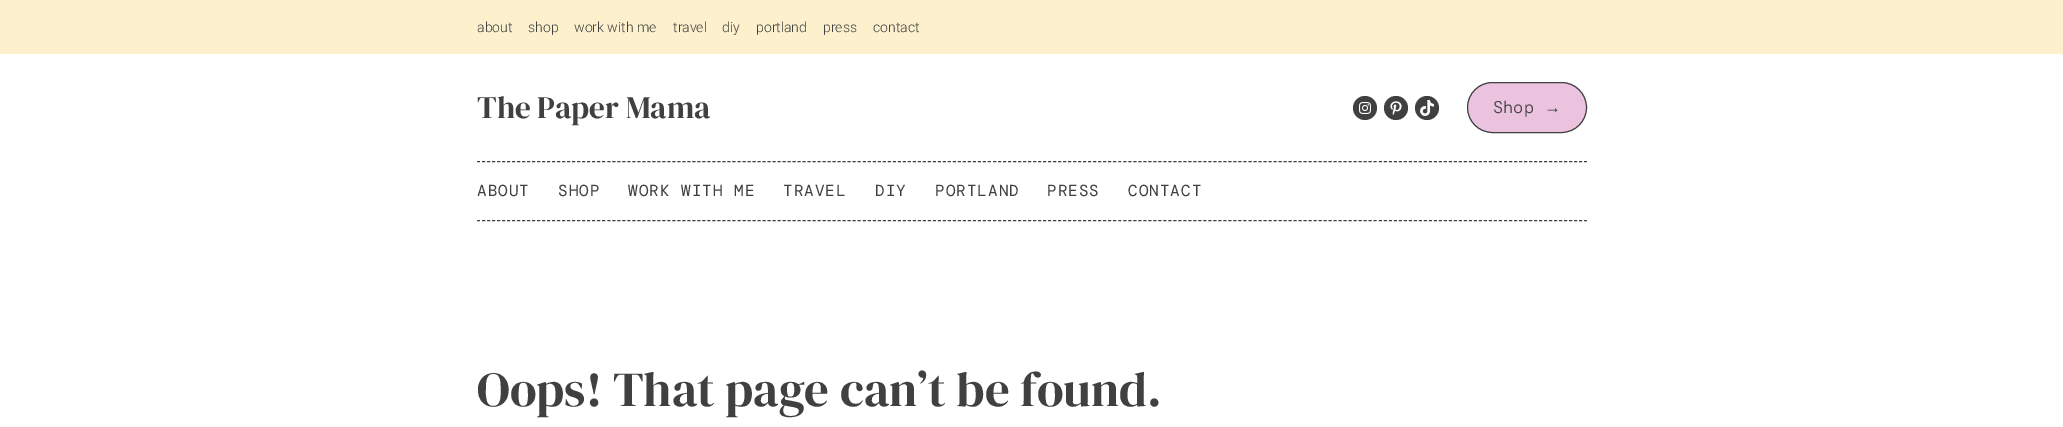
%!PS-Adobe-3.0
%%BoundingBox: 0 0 2063 427
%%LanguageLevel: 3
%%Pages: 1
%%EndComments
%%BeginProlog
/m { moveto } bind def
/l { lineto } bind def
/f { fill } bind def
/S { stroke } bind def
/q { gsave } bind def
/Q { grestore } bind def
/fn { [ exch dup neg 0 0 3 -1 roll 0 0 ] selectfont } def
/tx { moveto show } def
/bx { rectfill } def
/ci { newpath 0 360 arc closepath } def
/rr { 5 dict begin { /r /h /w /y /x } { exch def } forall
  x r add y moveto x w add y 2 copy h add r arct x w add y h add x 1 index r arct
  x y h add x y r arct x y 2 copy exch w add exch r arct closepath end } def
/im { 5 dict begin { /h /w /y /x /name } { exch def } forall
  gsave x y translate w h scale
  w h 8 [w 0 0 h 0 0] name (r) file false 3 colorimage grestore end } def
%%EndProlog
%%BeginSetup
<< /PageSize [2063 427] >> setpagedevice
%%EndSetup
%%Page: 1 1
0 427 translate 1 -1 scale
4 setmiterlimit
1 setgray
0 0 2063 427 bx
0.992 0.945 0.804 setrgbcolor
0 0 2063 54 bx
/Roboto-Light 14 fn
0.251 setgray
(about) 477 32 tx
(shop) 528 32 tx
(work with me) 574 32 tx
(travel) 673 32 tx
(diy) 722 32 tx
(portland) 756 32 tx
(press) 823 32 tx
(contact) 873 32 tx
/DMSerifDisplay-Regular 31.25 fn
(The Paper Mama) 477 118 tx
1365 108 12 ci f
(image0.raw) 1359 102 12 12 im
1396 108 12 ci f
(image1.raw) 1390 101 12 14 im
1427 108 12 ci f
(image2.raw) 1420 100 14 16 im
0.925 0.765 0.871 setrgbcolor
1467.5 82.5 119 50 25 rr q f Q
0.251 setgray
S
/DMMono-Light 17 fn
(Shop) 1493 113 tx
/LiberationSerif-Regular 17 fn
(→) 1544 113 tx
[3 2.01] 0 setdash
477 161.5 m 1587 161.5 l S
477 220.5 m 1587 220.5 l S
/DMMono-Regular 16 fn
477 196 m 1 0 (ABOUT) ashow
558 196 m 1 0 (SHOP) ashow
628 196 m 1 0 (WORK WITH ME) ashow
783 196 m 1 0 (TRAVEL) ashow
875 196 m 1 0 (DIY) ashow
935 196 m 1 0 (PORTLAND) ashow
1047 196 m 1 0 (PRESS) ashow
1128 196 m 1 0 (CONTACT) ashow
/DMSerifDisplay-Regular 48.8 fn
(Oops! That page can’t be found.) 477 406 tx
showpage
%%EOF
